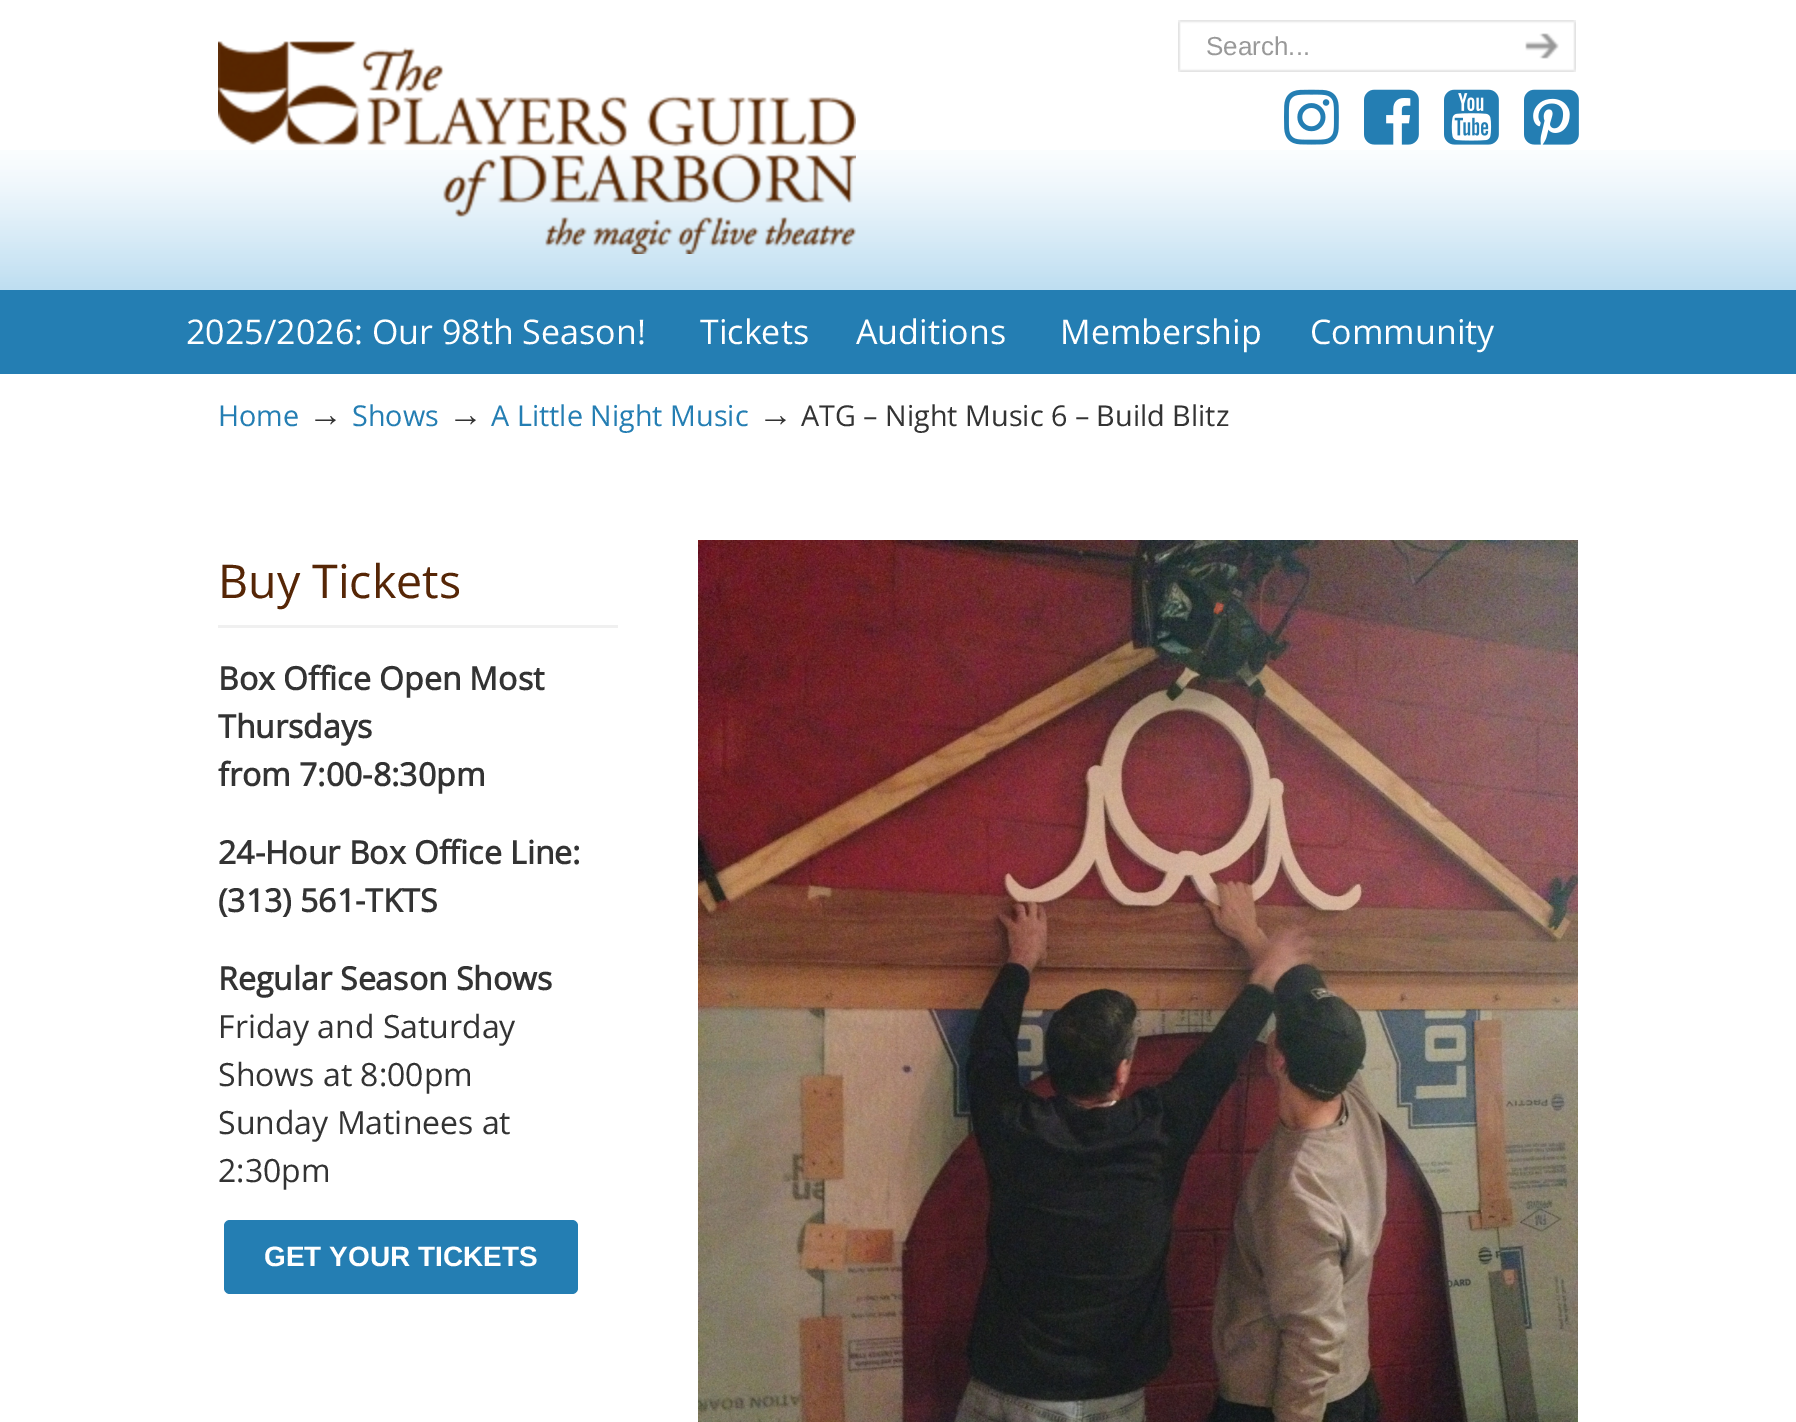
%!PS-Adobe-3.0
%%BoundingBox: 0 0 1796 1422
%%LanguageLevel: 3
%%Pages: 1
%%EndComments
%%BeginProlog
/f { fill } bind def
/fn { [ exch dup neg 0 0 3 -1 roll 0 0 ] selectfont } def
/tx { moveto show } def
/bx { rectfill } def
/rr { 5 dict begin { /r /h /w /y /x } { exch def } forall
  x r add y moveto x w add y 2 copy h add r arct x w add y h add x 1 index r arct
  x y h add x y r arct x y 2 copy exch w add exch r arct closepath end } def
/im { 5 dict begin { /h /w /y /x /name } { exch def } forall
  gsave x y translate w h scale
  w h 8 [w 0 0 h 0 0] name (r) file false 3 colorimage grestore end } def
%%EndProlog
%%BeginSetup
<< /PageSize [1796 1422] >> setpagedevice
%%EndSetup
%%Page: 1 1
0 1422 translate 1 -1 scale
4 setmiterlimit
1 setgray
0 0 1796 1422 bx
(image0.raw) 0 150 1796 140 im
(image1.raw) 218 41 638 213 im
(image2.raw) 1178 20 318 52 im
/LiberationSans-Regular 26 fn
0.6 setgray
(Search...) 1206 55 tx
(image3.raw) 1496 20 80 52 im
(image4.raw) 1284 89 55 56 im
(image5.raw) 1364 89 55 56 im
(image6.raw) 1444 89 55 56 im
(image7.raw) 1524 89 55 56 im
0.141 0.494 0.702 setrgbcolor
0 290 1796 84 bx
/OpenSans-Regular 34 fn
1 setgray
(2025/2026: Our 98th Season!) 186 344 tx
(Tickets) 700 344 tx
(Auditions) 856 344 tx
(Membership) 1060 344 tx
(Community) 1310 344 tx
/OpenSans-Regular 28.75 fn
0.141 0.494 0.702 setrgbcolor
(Home) 218 426 tx
/LiberationSerif-Regular 35 fn
0.2 setgray
(→) 308 426 tx
/OpenSans-Regular 28.75 fn
0.141 0.494 0.702 setrgbcolor
(Shows) 352 426 tx
/LiberationSerif-Regular 35 fn
0.2 setgray
(→) 448 426 tx
/OpenSans-Regular 28.75 fn
0.141 0.494 0.702 setrgbcolor
(A Little Night Music) 491 426 tx
/LiberationSerif-Regular 35 fn
0.2 setgray
(→) 758 426 tx
/OpenSans-Regular 28.75 fn
(ATG – Night Music 6 – Build Blitz) 801 426 tx
0.941 setgray
218 625 400 3 bx
/OpenSans-Regular 46.5 fn
0.337 0.149 0.024 setrgbcolor
(Buy Tickets) 218 598 tx
/OpenSans-Bold 32 fn
0.2 setgray
(Box Office Open Most) 218 690 tx
(Thursdays) 218 738 tx
(from 7:00-8:30pm) 218 786 tx
(24-Hour Box Office Line:) 218 864 tx
(\(313\) 561-TKTS) 218 912 tx
(Regular Season Shows) 218 990 tx
/OpenSans-Regular 32 fn
(Friday and Saturday) 218 1038 tx
(Shows at 8:00pm) 218 1086 tx
(Sunday Matinees at) 218 1134 tx
(2:30pm) 218 1182 tx
0.141 0.494 0.702 setrgbcolor
224 1220 354 74 6 rr f
/LiberationSans-Bold 28 fn
1 setgray
(GET YOUR TICKETS) 264 1266 tx
(image8.raw) 698 540 880 882 im
showpage
%%EOF
